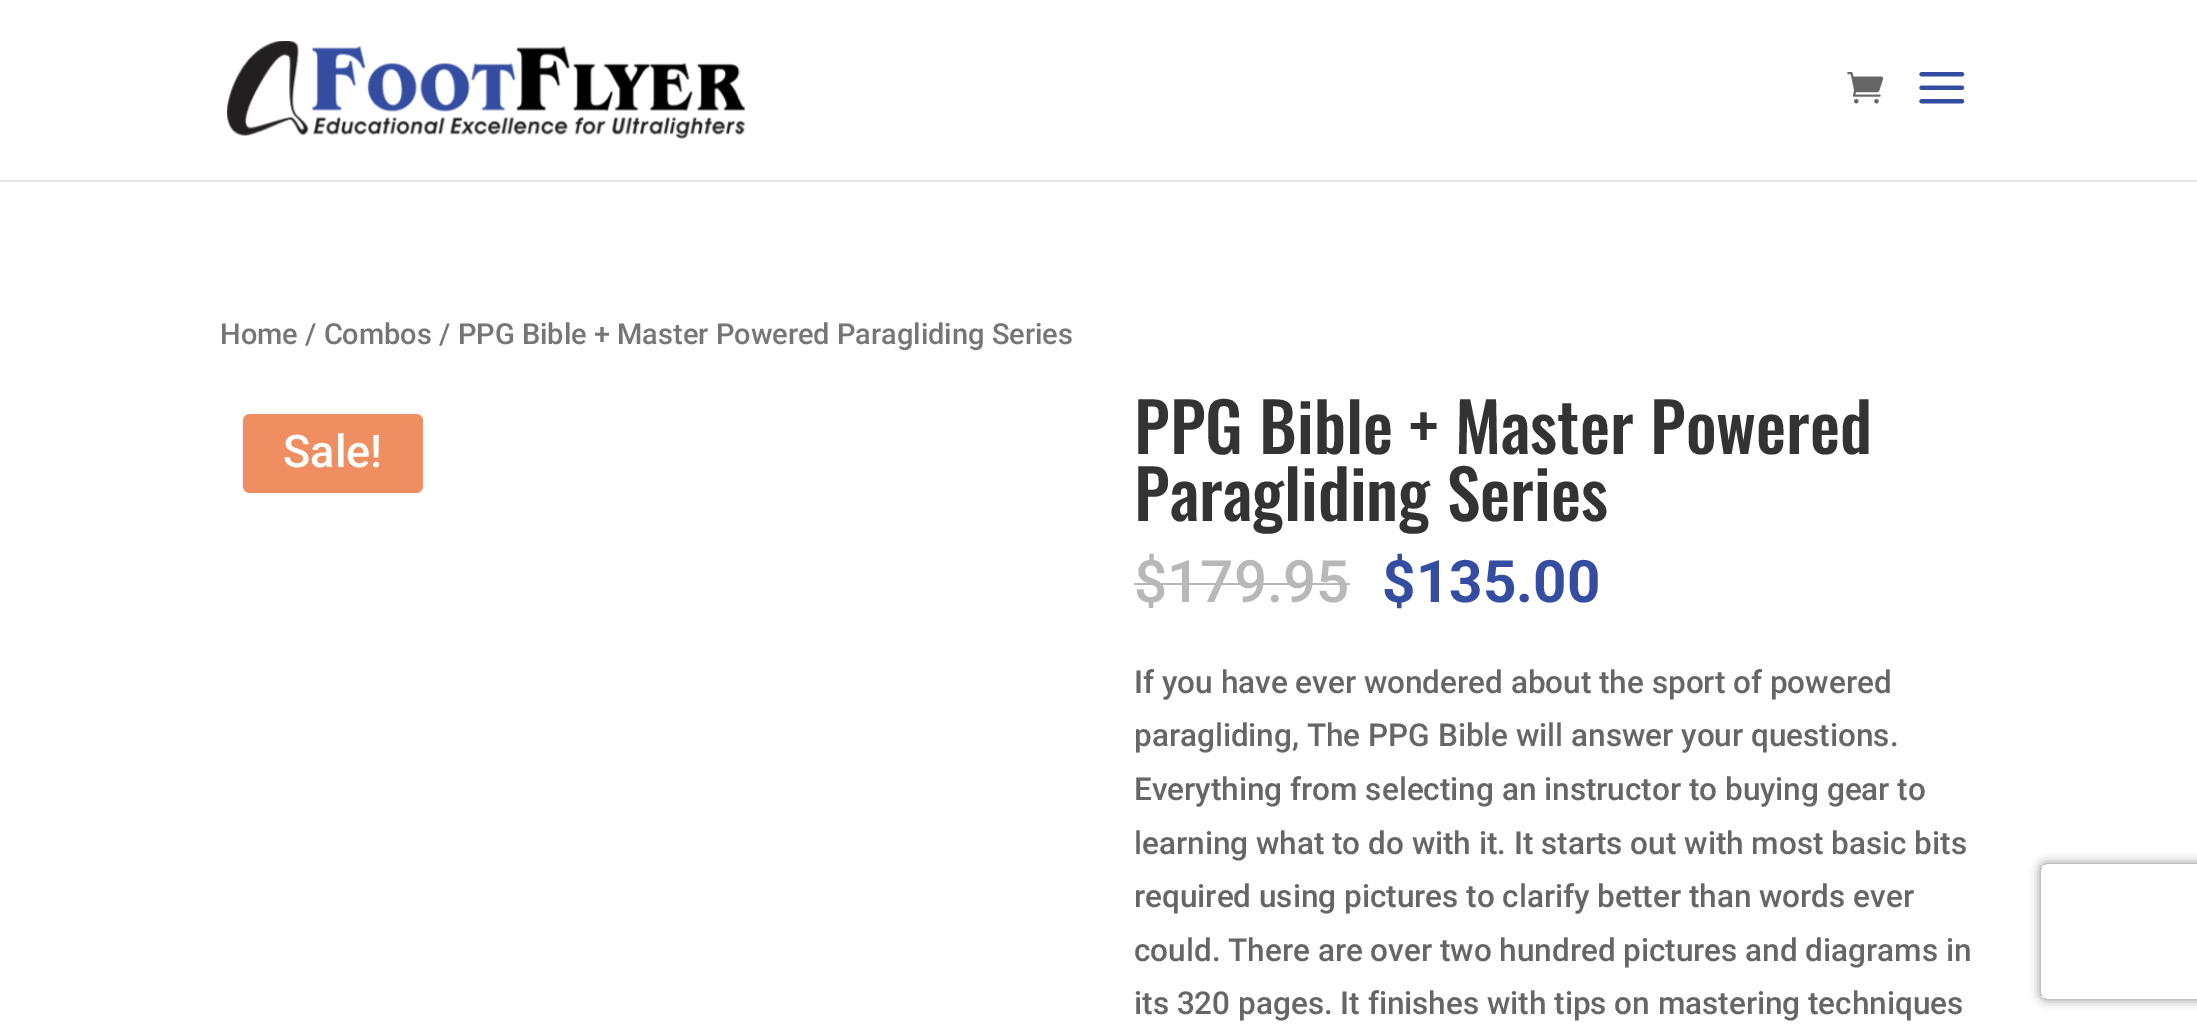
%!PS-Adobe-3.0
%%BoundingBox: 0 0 2197 1030
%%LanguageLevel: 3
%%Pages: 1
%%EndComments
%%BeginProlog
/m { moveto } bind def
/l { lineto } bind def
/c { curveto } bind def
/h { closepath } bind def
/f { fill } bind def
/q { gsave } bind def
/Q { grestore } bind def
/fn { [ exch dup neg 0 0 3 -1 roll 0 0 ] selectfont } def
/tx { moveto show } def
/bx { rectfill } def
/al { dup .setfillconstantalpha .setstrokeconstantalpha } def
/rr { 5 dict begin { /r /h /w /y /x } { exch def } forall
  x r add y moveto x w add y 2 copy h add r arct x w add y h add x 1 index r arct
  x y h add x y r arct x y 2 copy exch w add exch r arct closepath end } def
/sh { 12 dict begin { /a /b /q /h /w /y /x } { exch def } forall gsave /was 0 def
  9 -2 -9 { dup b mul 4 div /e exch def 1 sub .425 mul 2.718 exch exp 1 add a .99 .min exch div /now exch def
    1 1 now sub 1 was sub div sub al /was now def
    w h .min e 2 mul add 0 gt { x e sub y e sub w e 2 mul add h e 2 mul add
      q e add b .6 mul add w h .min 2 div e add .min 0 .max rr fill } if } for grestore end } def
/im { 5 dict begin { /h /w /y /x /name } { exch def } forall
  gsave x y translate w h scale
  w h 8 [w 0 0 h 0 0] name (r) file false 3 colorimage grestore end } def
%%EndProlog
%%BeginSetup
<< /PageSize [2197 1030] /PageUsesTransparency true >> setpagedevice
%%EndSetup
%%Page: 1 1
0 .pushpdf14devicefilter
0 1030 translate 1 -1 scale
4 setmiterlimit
1 setgray
0 0 2197 1030 bx
0.902 setgray
0 180 2197 2 bx
(image0.raw) 227 41 518 98 im
(image1.raw) 1847 72 37 32 im
(image2.raw) 1919 72 46 32 im
/Roboto-Medium 29 fn
0.463 setgray
(Home / Combos / PPG Bible + Master Powered Paragliding Series) 220 344 tx
0.937 0.561 0.38 setrgbcolor
243 414 180 79 7 rr f
/Roboto-Medium 45 fn
1 setgray
(Sale!) 283 467 tx
/Oswald-Medium 67.5 fn
0.2 setgray
(PPG Bible + Master Powered) 1134 454 tx
(Paragliding Series) 1134 521 tx
/Roboto-Medium 58.5 fn
0.722 setgray
($179.95) 1134 602 tx
1134 583 216 2 bx
/Roboto-Bold 58.5 fn
0.204 0.302 0.627 setrgbcolor
($135.00) 1382 602 tx
/Roboto-Medium 31.5 fn
0.4 setgray
(If you have ever wondered about the sport of powered) 1134 693 tx
(paragliding, The PPG Bible will answer your questions.) 1134 746 tx
(Everything from selecting an instructor to buying gear to) 1134 800 tx
(learning what to do with it. It starts out with most basic bits) 1134 854 tx
(required using pictures to clarify better than words ever) 1134 907 tx
(could. There are over two hundred pictures and diagrams in) 1134 961 tx
(its 320 pages. It finishes with tips on mastering techniques) 1134 1014 tx
q
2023 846 m 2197 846 l 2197 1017 l 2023 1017 l h 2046 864 m 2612 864 l 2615 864 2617 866 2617 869 c 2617 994 l 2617 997 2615 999 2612 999 c 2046 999 l 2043 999 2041 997 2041 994 c 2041 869 l 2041 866 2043 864 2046 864 c h eoclip newpath
0.502 setgray
2041 864 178 135 5 5.5 1 sh
Q
.poppdf14devicefilter showpage
%%EOF
